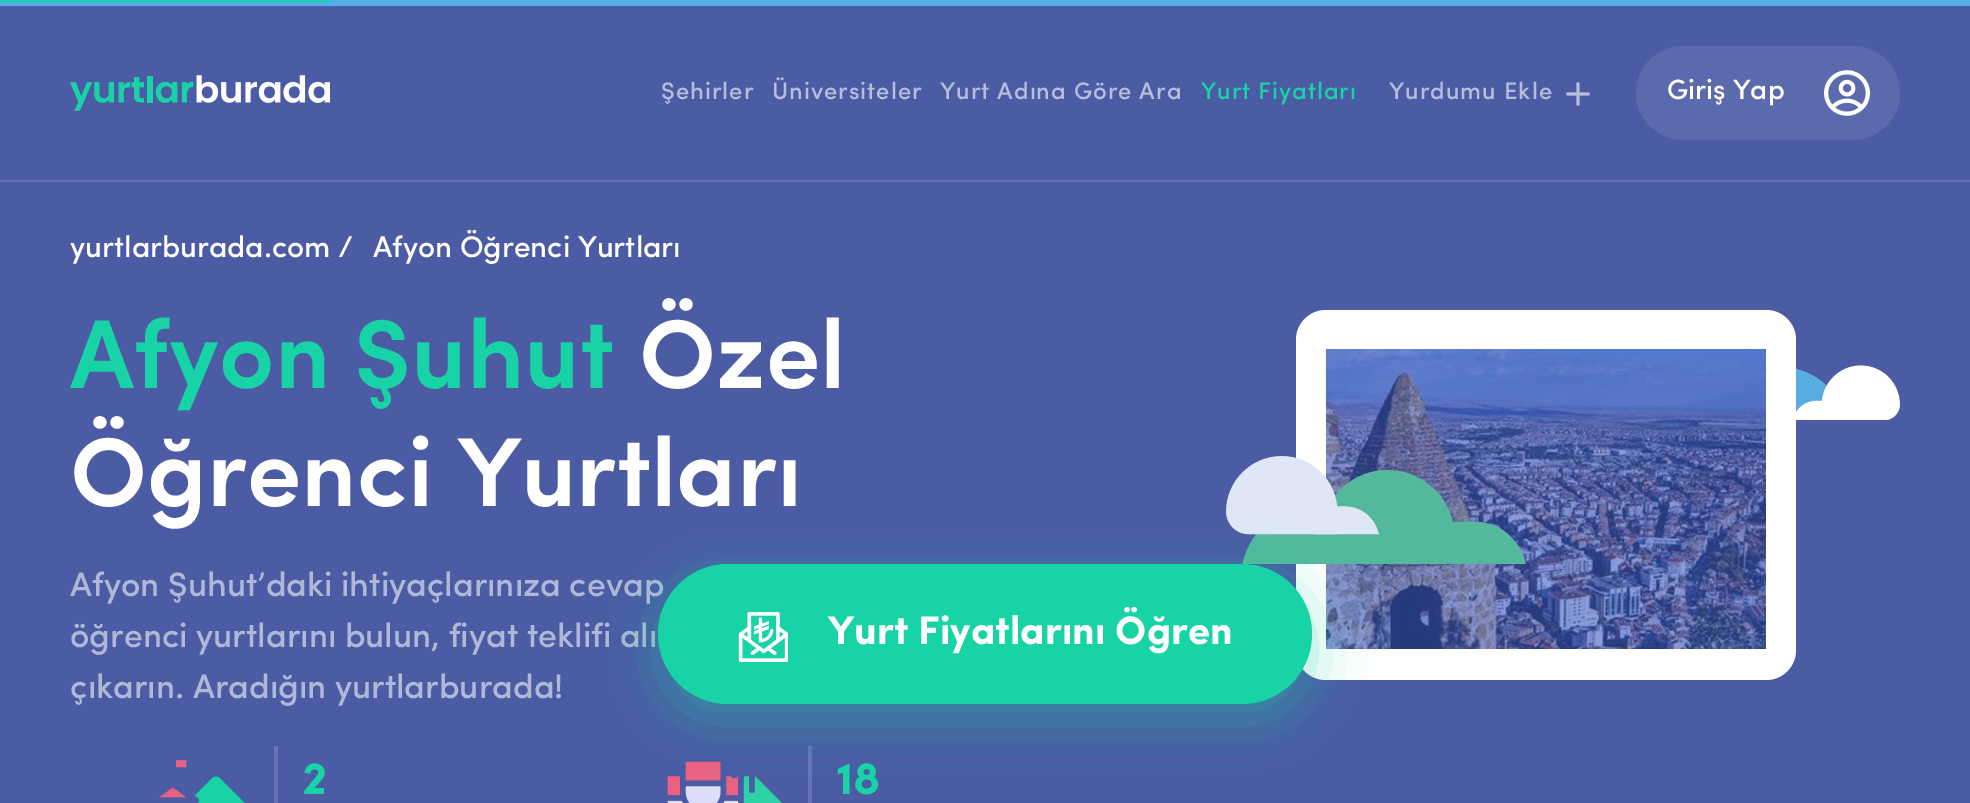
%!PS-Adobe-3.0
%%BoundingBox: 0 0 1970 803
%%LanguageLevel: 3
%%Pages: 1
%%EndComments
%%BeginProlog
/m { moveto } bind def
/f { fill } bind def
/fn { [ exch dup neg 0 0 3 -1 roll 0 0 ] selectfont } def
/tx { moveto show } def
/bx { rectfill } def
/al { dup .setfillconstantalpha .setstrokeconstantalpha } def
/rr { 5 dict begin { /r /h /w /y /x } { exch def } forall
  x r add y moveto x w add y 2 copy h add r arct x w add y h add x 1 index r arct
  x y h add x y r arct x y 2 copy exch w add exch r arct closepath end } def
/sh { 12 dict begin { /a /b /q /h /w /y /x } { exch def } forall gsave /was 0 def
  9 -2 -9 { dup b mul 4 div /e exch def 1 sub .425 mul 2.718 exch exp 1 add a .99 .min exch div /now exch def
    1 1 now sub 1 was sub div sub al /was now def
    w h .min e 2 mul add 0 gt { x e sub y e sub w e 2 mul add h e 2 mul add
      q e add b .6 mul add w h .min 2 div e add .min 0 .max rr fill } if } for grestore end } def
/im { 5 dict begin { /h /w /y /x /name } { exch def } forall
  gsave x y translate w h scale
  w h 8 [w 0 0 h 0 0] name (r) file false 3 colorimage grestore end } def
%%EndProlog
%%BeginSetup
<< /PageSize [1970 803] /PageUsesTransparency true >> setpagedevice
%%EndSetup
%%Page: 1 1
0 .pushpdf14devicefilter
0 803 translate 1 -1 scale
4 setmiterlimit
0.325 0.682 0.914 setrgbcolor
0 0 1970 803 bx
0.294 0.357 0.643 setrgbcolor
0 6 1970 797 bx
0.392 0.447 0.694 setrgbcolor
0 180 1970 2 bx
0.09 0.827 0.647 setrgbcolor
0 0 330 2 bx
(image0.raw) 70 75 260 36 im
/Sofia-Medium 24 fn
0.718 0.741 0.859 setrgbcolor
661 99 m 1 0 (Şehirler) ashow
772 99 m 1 0 (Üniversiteler) ashow
940 99 m 1 0 (Yurt Adına Göre Ara) ashow
0.09 0.827 0.647 setrgbcolor
1201 99 m 1 0 (Yurt Fiyatları) ashow
0.718 0.741 0.859 setrgbcolor
1389 99 m 1 0 (Yurdumu Ekle) ashow
(image1.raw) 1566 82 24 24 im
0.357 0.416 0.678 setrgbcolor
1636 46 264 94 47 rr f
/Sofia-Medium 28 fn
1 setgray
(Giriş Yap) 1667 99 tx
(image2.raw) 1824 70 46 46 im
/Sofia-Medium 30 fn
(yurtlarburada.com /) 70 257 tx
(Afyon Öğrenci Yurtları) 373 257 tx
/Sofia-SemiBold 98 fn
0.09 0.827 0.647 setrgbcolor
(Afyon Şuhut) 70 388 tx
1 setgray
(Özel) 639 388 tx
(Öğrenci Yurtları) 70 506 tx
/Sofia-Medium 34 fn
0.69 0.718 0.843 setrgbcolor
(Afyon Şuhut’daki ihtiyaçlarınıza cevap) 70 596 tx
(öğrenci yurtlarını bulun, fiyat teklifi alı) 70 647 tx
(çıkarın. Aradığın yurtlarburada!) 70 698 tx
(image3.raw) 159 760 86 43 im
0.4 0.455 0.698 setrgbcolor
274 746 4 57 bx
/Sofia-Bold 46 fn
0.09 0.827 0.647 setrgbcolor
(2) 302 794 tx
(image4.raw) 667 761 115 42 im
0.4 0.455 0.698 setrgbcolor
808 746 4 57 bx
0.09 0.827 0.647 setrgbcolor
(18) 836 794 tx
1 setgray
1296 310 500 370 30 rr f
(image5.raw) 1326 349 440 300 im
(image6.raw) 1796 365 104 55 im
(image7.raw) 1226 456 300 108 im
0.09 0.827 0.647 setrgbcolor
658 580 654 140 70 29 0.42 sh
658 564 654 140 70 rr f
(image8.raw) 738 612 50 50 im
/Sofia-Bold 40 fn
1 setgray
(Yurt Fiyatlarını Öğren) 828 644 tx
.poppdf14devicefilter showpage
%%EOF
